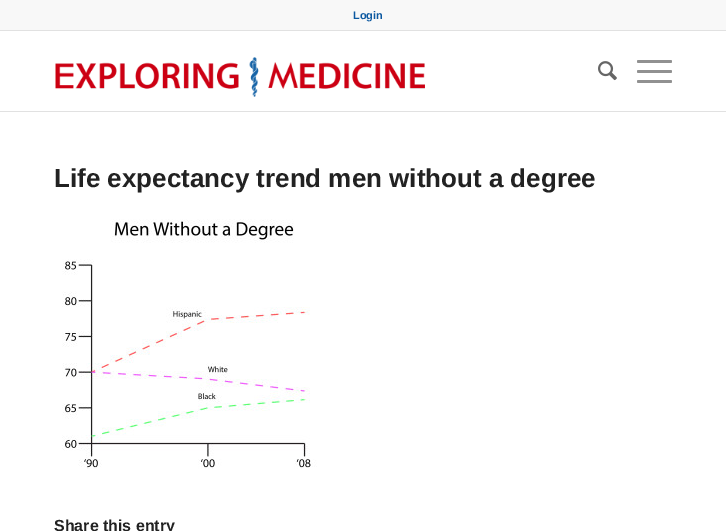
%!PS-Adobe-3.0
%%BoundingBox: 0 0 726 531
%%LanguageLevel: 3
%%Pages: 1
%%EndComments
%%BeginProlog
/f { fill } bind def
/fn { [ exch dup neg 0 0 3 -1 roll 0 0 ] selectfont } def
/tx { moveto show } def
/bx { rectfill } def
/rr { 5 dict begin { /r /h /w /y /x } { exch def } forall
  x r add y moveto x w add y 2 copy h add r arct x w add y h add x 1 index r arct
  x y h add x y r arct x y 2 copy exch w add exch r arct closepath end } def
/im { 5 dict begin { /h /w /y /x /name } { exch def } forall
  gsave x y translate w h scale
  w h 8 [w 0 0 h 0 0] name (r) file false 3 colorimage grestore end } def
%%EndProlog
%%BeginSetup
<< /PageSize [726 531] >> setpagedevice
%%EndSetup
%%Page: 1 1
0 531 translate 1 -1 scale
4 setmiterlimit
1 setgray
0 0 726 531 bx
0.973 setgray
0 0 726 30 bx
0.882 setgray
0 30 726 1 bx
/LiberationSans-Bold 11 fn
0.047 0.349 0.631 setrgbcolor
(Login) 353 19 tx
0.882 setgray
0 111 726 1 bx
(image0.raw) 55 57 370 40 im
(image1.raw) 598 61 19 20 im
0.569 setgray
637 70 35 3 1.5 rr f
637 60 35 3 1.5 rr f
637 80 35 3 1.5 rr f
/LiberationSans-Bold 26 fn
0.133 setgray
(Life expectancy trend men without a degree) 54 187 tx
(image2.raw) 62 219 255 250 im
/LiberationSans-Bold 16 fn
(Share this entry) 54 531 tx
showpage
%%EOF
